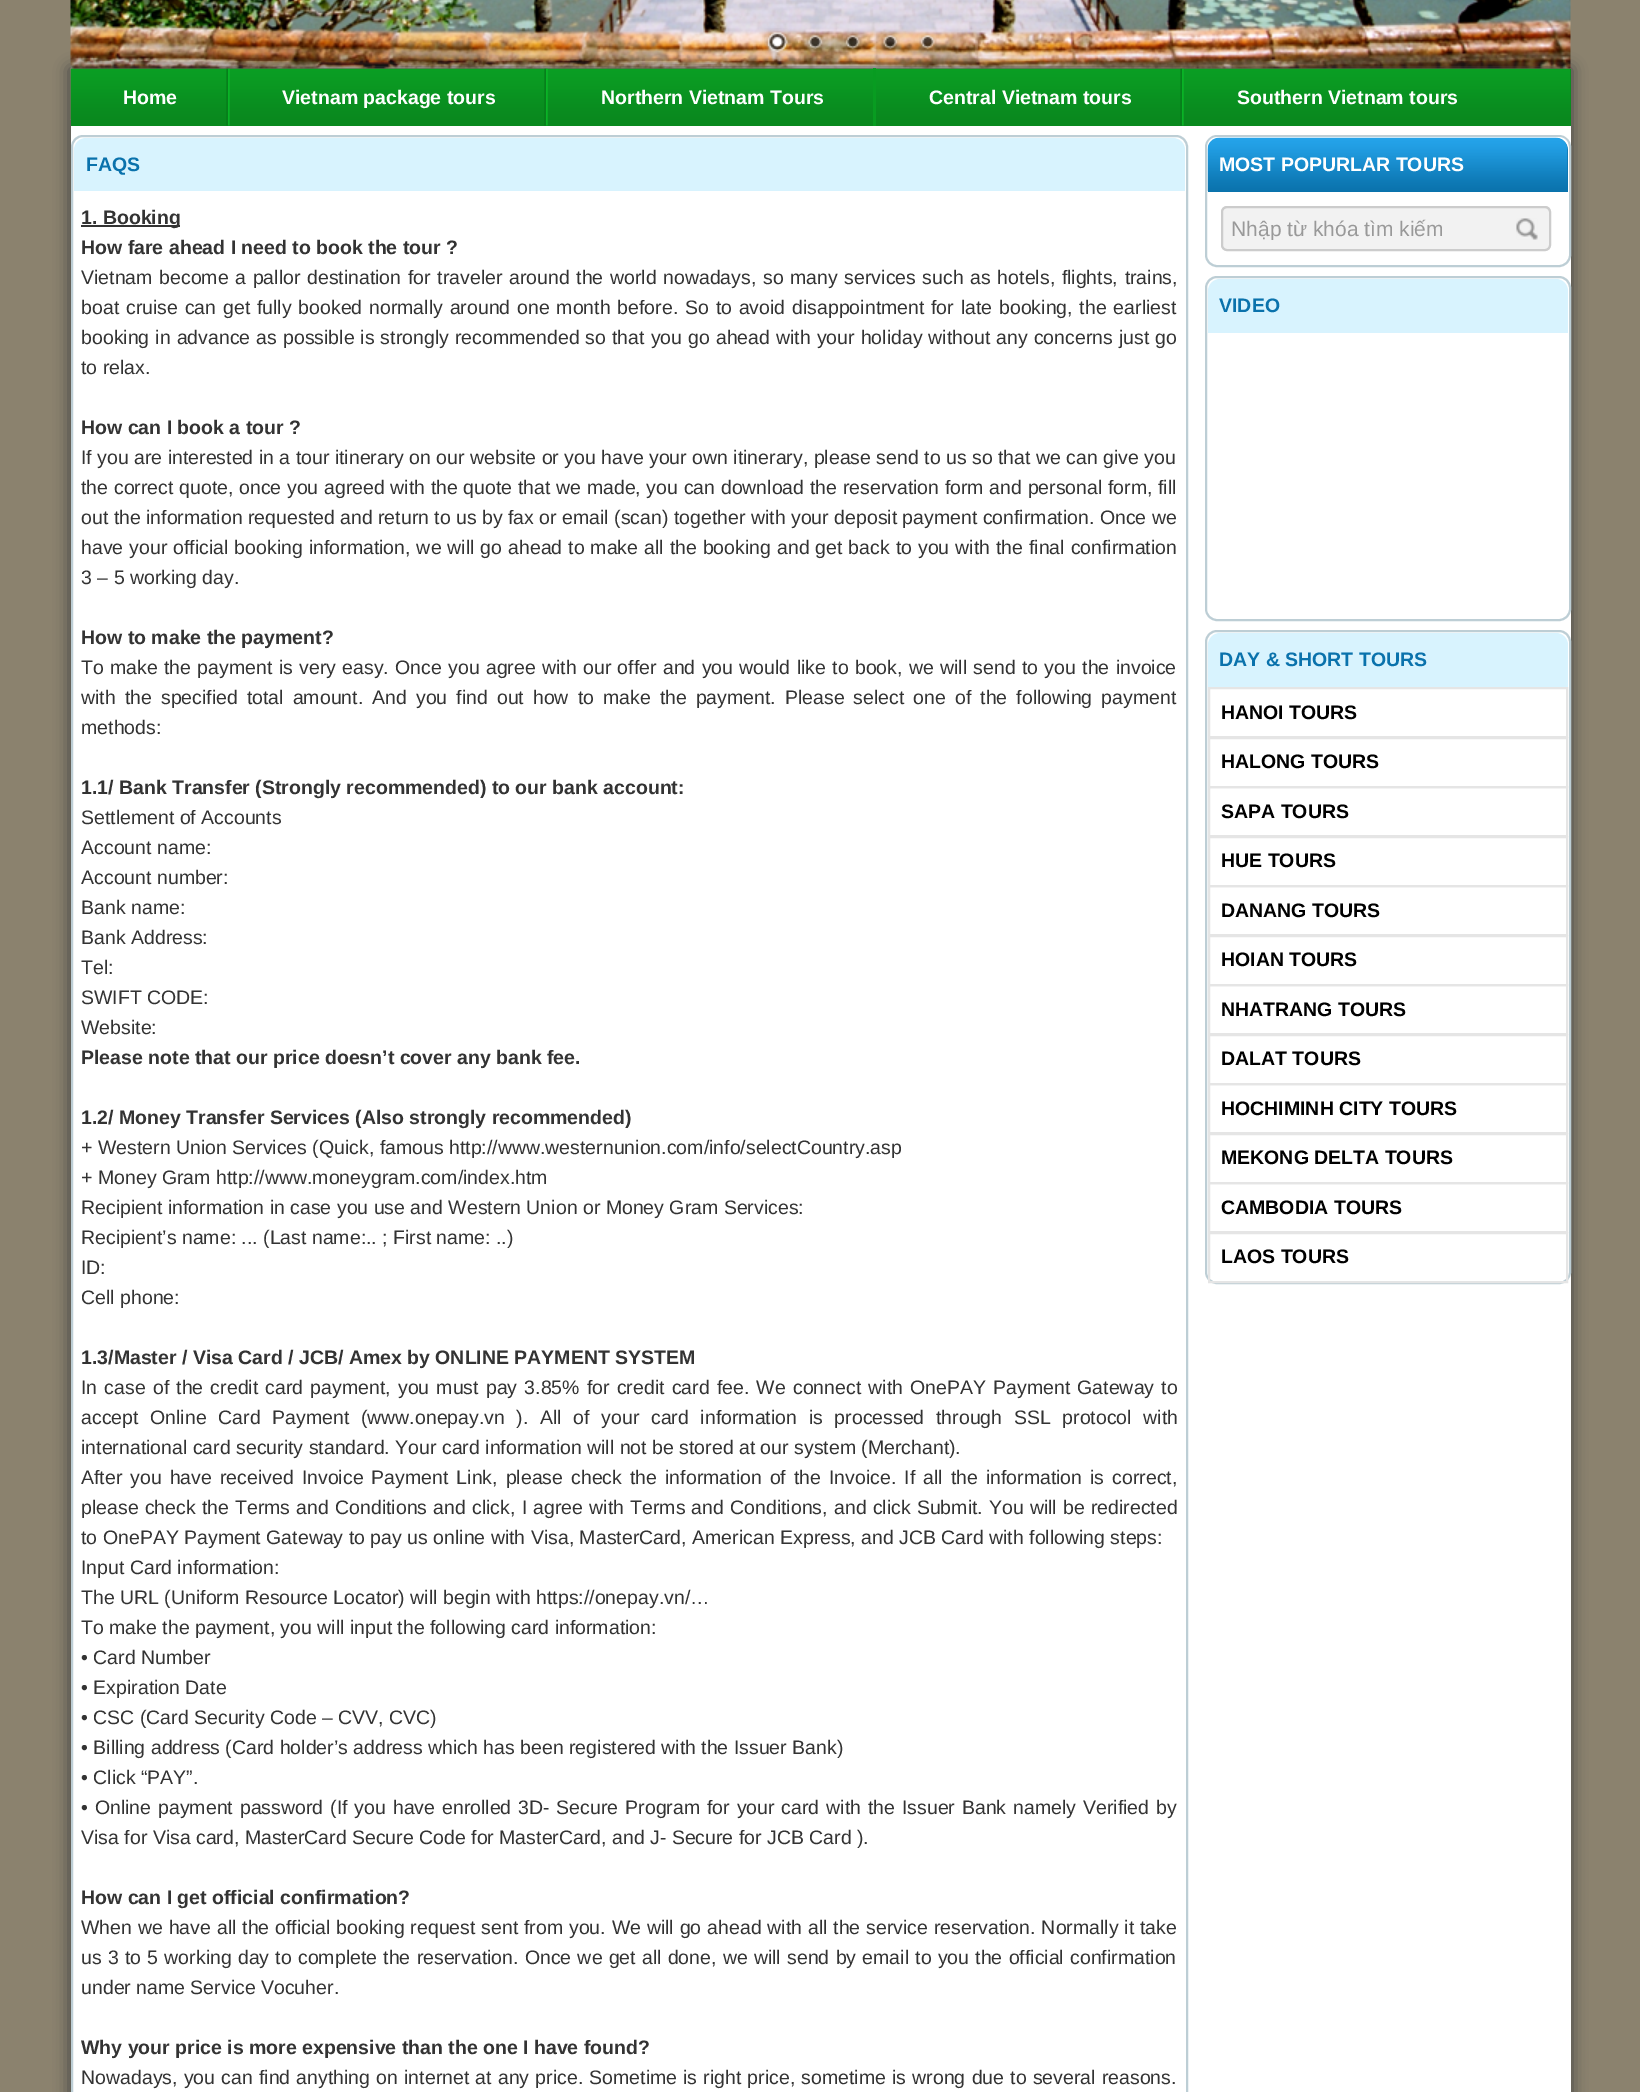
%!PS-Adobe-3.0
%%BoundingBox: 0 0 1640 2092
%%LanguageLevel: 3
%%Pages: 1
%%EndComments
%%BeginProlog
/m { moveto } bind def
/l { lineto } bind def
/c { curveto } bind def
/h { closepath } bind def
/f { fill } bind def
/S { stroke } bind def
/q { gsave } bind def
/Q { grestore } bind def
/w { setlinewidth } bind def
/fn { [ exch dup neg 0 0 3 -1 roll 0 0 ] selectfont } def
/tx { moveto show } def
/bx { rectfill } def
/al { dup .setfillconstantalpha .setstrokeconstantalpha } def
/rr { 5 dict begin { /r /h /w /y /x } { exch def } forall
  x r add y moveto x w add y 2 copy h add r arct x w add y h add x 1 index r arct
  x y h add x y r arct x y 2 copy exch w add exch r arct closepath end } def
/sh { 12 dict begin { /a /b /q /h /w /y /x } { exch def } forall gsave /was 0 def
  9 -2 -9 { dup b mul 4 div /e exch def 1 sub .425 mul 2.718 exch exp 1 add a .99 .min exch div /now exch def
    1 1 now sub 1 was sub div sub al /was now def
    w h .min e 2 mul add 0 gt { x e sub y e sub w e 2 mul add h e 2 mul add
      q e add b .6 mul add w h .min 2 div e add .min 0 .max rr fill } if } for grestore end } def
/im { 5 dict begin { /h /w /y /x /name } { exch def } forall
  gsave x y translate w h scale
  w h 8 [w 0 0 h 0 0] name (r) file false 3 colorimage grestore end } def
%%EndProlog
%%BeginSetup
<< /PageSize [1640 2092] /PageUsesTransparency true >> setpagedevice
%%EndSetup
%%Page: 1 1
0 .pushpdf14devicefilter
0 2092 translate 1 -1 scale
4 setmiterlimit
0.545 0.51 0.431 setrgbcolor
0 0 1640 2092 bx
(image0.raw) 70 0 1501 69 im
0.267 setgray
69 68 1503 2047 0 7.5 1 sh
(image1.raw) 764 28 27 27 im
(image2.raw) 806 32 19 19 im
(image3.raw) 844 32 18 19 im
(image4.raw) 881 32 19 19 im
(image5.raw) 919 32 18 19 im
1 setgray
71 126 1500 1966 bx
0.035 0.537 0.118 setrgbcolor
71 69 1500 57 bx
(image6.raw) 70 68 1501 52 im
(image7.raw) 226 68 4 58 im
/LiberationSans-Bold 19.5 fn
1 setgray
(Home) 123 104 tx
(image8.raw) 544 68 4 58 im
(Vietnam package tours) 282 104 tx
0.031 0.612 0.129 setrgbcolor
873 68 3 58 bx
1 setgray
(Northern Vietnam Tours) 601 104 tx
(image9.raw) 1180 68 4 58 im
(Central Vietnam tours) 929 104 tx
(Southern Vietnam tours) 1237 104 tx
0.741 0.808 0.835 setrgbcolor
2 w
72 136 1115 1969 11 rr S
0.847 0.953 0.996 setrgbcolor
86 138 m 1173 138 l 1179.5 138 1185 143.5 1185 150 c 1185 191 l 74 191 l 74 150 l 74 143.5 79.5 138 86 138 c h f
0.039 0.447 0.675 setrgbcolor
(FAQS) 86 171 tx
0.2 setgray
81 225 99 2 bx
(1. Booking) 81 224 tx
(How fare ahead I need to book the tour ?) 81 254 tx
/LiberationSans-Regular 19.5 fn
81 284 m 1.2 0 32 (Vietnam become a pallor destination for traveler around the world nowadays, so many services such as hotels, flights, trains,) widthshow
81 314 m 1.4 0 32 (boat cruise can get fully booked normally around one month before. So to avoid disappointment for late booking, the earliest) widthshow
81 344 m 0.6 0 32 (booking in advance as possible is strongly recommended so that you go ahead with your holiday without any concerns just go) widthshow
(to relax.) 81 374 tx
/LiberationSans-Bold 19.5 fn
(How can I book a tour ?) 81 434 tx
/LiberationSans-Regular 19.5 fn
(If you are interested in a tour itinerary on our website or you have your own itinerary, please send to us so that we can give you) 81 464 tx
81 494 m 0.25 0 32 (the correct quote, once you agreed with the quote that we made, you can download the reservation form and personal form, fill) widthshow
(out the information requested and return to us by fax or email \(scan\) together with your deposit payment confirmation. Once we) 81 524 tx
81 554 m 0.55 0 32 (have your official booking information, we will go ahead to make all the booking and get back to you with the final confirmation) widthshow
(3 – 5 working day.) 81 584 tx
/LiberationSans-Bold 19.5 fn
(How to make the payment?) 81 644 tx
/LiberationSans-Regular 19.5 fn
81 674 m 0.9 0 32 (To make the payment is very easy. Once you agree with our offer and you would like to book, we will send to you the invoice) widthshow
81 704 m 3.6 0 32 (with the specified total amount. And you find out how to make the payment. Please select one of the following payment) widthshow
(methods:) 81 734 tx
/LiberationSans-Bold 19.5 fn
(1.1/ Bank Transfer \(Strongly recommended\) to our bank account:) 81 794 tx
/LiberationSans-Regular 19.5 fn
(Settlement of Accounts) 81 824 tx
(Account name:) 81 854 tx
(Account number:) 81 884 tx
(Bank name:) 81 914 tx
(Bank Address:) 81 944 tx
(Tel:) 81 974 tx
(SWIFT CODE:) 81 1004 tx
(Website:) 81 1034 tx
/LiberationSans-Bold 19.5 fn
(Please note that our price doesn’t cover any bank fee.) 81 1064 tx
(1.2/ Money Transfer Services \(Also strongly recommended\)) 81 1124 tx
/LiberationSans-Regular 19.5 fn
(+ Western Union Services \(Quick, famous http://www.westernunion.com/info/selectCountry.asp) 81 1154 tx
(+ Money Gram http://www.moneygram.com/index.htm) 81 1184 tx
(Recipient information in case you use and Western Union or Money Gram Services:) 81 1214 tx
(Recipient’s name: ... \(Last name:.. ; First name: ..\)) 81 1244 tx
(ID:) 81 1274 tx
(Cell phone:) 81 1304 tx
/LiberationSans-Bold 19.5 fn
(1.3/Master / Visa Card / JCB/ Amex by ONLINE PAYMENT SYSTEM) 81 1364 tx
/LiberationSans-Regular 19.5 fn
81 1394 m 1.75 0 32 (In case of the credit card payment, you must pay 3.85% for credit card fee. We connect with OnePAY Payment Gateway to) widthshow
81 1424 m 6.25 0 32 (accept Online Card Payment \(www.onepay.vn \). All of your card information is processed through SSL protocol with) widthshow
(international card security standard. Your card information will not be stored at our system \(Merchant\).) 81 1454 tx
81 1484 m 2.6 0 32 (After you have received Invoice Payment Link, please check the information of the Invoice. If all the information is correct,) widthshow
81 1514 m 0.75 0 32 (please check the Terms and Conditions and click, I agree with Terms and Conditions, and click Submit. You will be redirected) widthshow
(to OnePAY Payment Gateway to pay us online with Visa, MasterCard, American Express, and JCB Card with following steps:) 81 1544 tx
(Input Card information:) 81 1574 tx
(The URL \(Uniform Resource Locator\) will begin with https://onepay.vn/…) 81 1604 tx
(To make the payment, you will input the following card information:) 81 1634 tx
(• Card Number) 81 1664 tx
(• Expiration Date) 81 1694 tx
(• CSC \(Card Security Code – CVV, CVC\)) 81 1724 tx
(• Billing address \(Card holder’s address which has been registered with the Issuer Bank\)) 81 1754 tx
(• Click “PAY”.) 81 1784 tx
81 1814 m 1.5 0 32 (• Online payment password \(If you have enrolled 3D- Secure Program for your card with the Issuer Bank namely Verified by) widthshow
(Visa for Visa card, MasterCard Secure Code for MasterCard, and J- Secure for JCB Card \).) 81 1844 tx
/LiberationSans-Bold 19.5 fn
(How can I get official confirmation?) 81 1904 tx
/LiberationSans-Regular 19.5 fn
81 1934 m 0.45 0 32 (When we have all the official booking request sent from you. We will go ahead with all the service reservation. Normally it take) widthshow
81 1964 m 0.8 0 32 (us 3 to 5 working day to complete the reservation. Once we get all done, we will send by email to you the official confirmation) widthshow
(under name Service Vocuher.) 81 1994 tx
/LiberationSans-Bold 19.5 fn
(Why your price is more expensive than the one I have found?) 81 2054 tx
/LiberationSans-Regular 19.5 fn
81 2084 m 0.75 0 32 (Nowadays, you can find anything on internet at any price. Sometime is right price, sometime is wrong due to several reasons.) widthshow
0.741 0.808 0.835 setrgbcolor
1206 136 364 130 11 rr S
0.039 0.451 0.678 setrgbcolor
1220 138 m 1556 138 l 1562.5 138 1568 143.5 1568 150 c 1568 192 l 1208 192 l 1208 150 l 1208 143.5 1213.5 138 1220 138 c h f
(image10.raw) 1207 137 361 55 im
/LiberationSans-Bold 19.5 fn
1 setgray
(MOST POPURLAR TOURS) 1219 171 tx
0.949 setgray
1221 206 330 45 6 rr f
(image11.raw) 1516 218 22 22 im
0.878 setgray
1227 208 m 1545 208 l 1547 208 1550 211 1550 213 c 1550 212 l 1550 209 1548 207 1545 207 c 1228 207 l 1226 207 1224 208 1223 210 c 1224 209 1226 208 1227 208 c h f
0.8 setgray
1222 207 328 43 5 rr S
q
1232 216 309 24 rectclip
/LiberationSans-Regular 21 fn
0.6 setgray
(Nhập từ khóa tìm kiếm) 1231 236 tx
Q
0.741 0.808 0.835 setrgbcolor
1206 277 364 343 11 rr S
0.847 0.953 0.996 setrgbcolor
1220 279 m 1556 279 l 1562.5 279 1568 284.5 1568 291 c 1568 333 l 1208 333 l 1208 291 l 1208 284.5 1213.5 279 1220 279 c h f
0.039 0.447 0.675 setrgbcolor
(VIDEO) 1219 312 tx
0.741 0.808 0.835 setrgbcolor
1206 631 364 652 11 rr S
0.847 0.953 0.996 setrgbcolor
1220 633 m 1556 633 l 1562.5 633 1568 638.5 1568 645 c 1568 687 l 1208 687 l 1208 645 l 1208 638.5 1213.5 633 1220 633 c h f
0.039 0.447 0.675 setrgbcolor
(DAY & SHORT TOURS) 1219 666 tx
0.898 setgray
1209 688 358 49 rectstroke
0 setgray
(HANOI TOURS) 1221 719 tx
0.898 setgray
1209 738 358 49 rectstroke
0 setgray
(HALONG TOURS) 1221 768 tx
0.898 setgray
1209 787 358 49 rectstroke
0 setgray
(SAPA TOURS) 1221 818 tx
0.898 setgray
1209 837 358 49 rectstroke
0 setgray
(HUE TOURS) 1221 867 tx
0.898 setgray
1209 886 358 49 rectstroke
0 setgray
(DANANG TOURS) 1221 917 tx
0.898 setgray
1209 936 358 49 rectstroke
0 setgray
(HOIAN TOURS) 1221 966 tx
0.898 setgray
1209 985 358 49 rectstroke
0 setgray
(NHATRANG TOURS) 1221 1016 tx
0.898 setgray
1209 1035 358 49 rectstroke
0 setgray
(DALAT TOURS) 1221 1065 tx
0.898 setgray
1209 1084 358 49 rectstroke
0 setgray
(HOCHIMINH CITY TOURS) 1221 1115 tx
0.898 setgray
1209 1134 358 49 rectstroke
0 setgray
(MEKONG DELTA TOURS) 1221 1164 tx
0.898 setgray
1209 1183 358 49 rectstroke
0 setgray
(CAMBODIA TOURS) 1221 1214 tx
0.898 setgray
1209 1233 358 49 rectstroke
0 setgray
(LAOS TOURS) 1221 1263 tx
.poppdf14devicefilter showpage
%%EOF
